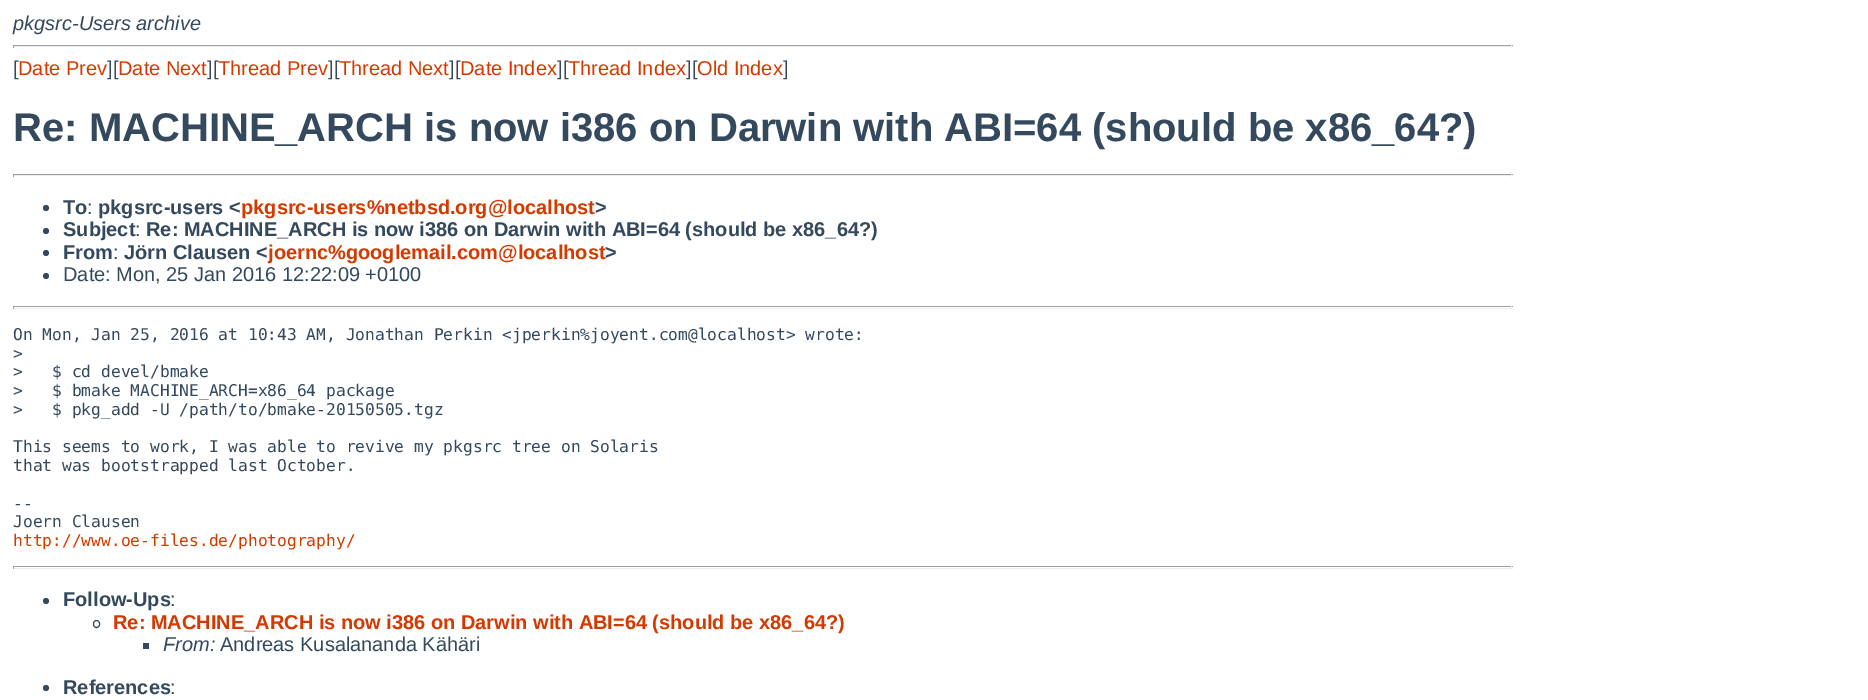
%!PS-Adobe-3.0
%%BoundingBox: 0 0 1868 700
%%LanguageLevel: 3
%%Pages: 1
%%EndComments
%%BeginProlog
/f { fill } bind def
/S { stroke } bind def
/fn { [ exch dup neg 0 0 3 -1 roll 0 0 ] selectfont } def
/tx { moveto show } def
/bx { rectfill } def
/ci { newpath 0 360 arc closepath } def
/rr { 5 dict begin { /r /h /w /y /x } { exch def } forall
  x r add y moveto x w add y 2 copy h add r arct x w add y h add x 1 index r arct
  x y h add x y r arct x y 2 copy exch w add exch r arct closepath end } def
%%EndProlog
%%BeginSetup
<< /PageSize [1868 700] >> setpagedevice
%%EndSetup
%%Page: 1 1
0 700 translate 1 -1 scale
4 setmiterlimit
1 setgray
0 0 1868 700 bx
/LiberationSans-Italic 20 fn
0.204 0.286 0.369 setrgbcolor
(pkgsrc-Users archive) 13 30 tx
0.624 setgray
13 45 1500 1 bx
0.933 setgray
1511 45 1 3 bx
13 46 1500 1 bx
0.624 setgray
13 45 1 3 bx
/LiberationSans-Regular 20 fn
0.204 0.286 0.369 setrgbcolor
([) 13 75 tx
0.831 0.224 0 setrgbcolor
(Date Prev) 18 75 tx
0.204 0.286 0.369 setrgbcolor
(][) 107 75 tx
0.831 0.224 0 setrgbcolor
(Date Next) 118 75 tx
0.204 0.286 0.369 setrgbcolor
(][) 207 75 tx
0.831 0.224 0 setrgbcolor
(Thread Prev) 218 75 tx
0.204 0.286 0.369 setrgbcolor
(][) 328 75 tx
0.831 0.224 0 setrgbcolor
(Thread Next) 339 75 tx
0.204 0.286 0.369 setrgbcolor
(][) 449 75 tx
0.831 0.224 0 setrgbcolor
(Date Index) 460 75 tx
0.204 0.286 0.369 setrgbcolor
(][) 557 75 tx
0.831 0.224 0 setrgbcolor
(Thread Index) 568 75 tx
0.204 0.286 0.369 setrgbcolor
(][) 686 75 tx
0.831 0.224 0 setrgbcolor
(Old Index) 697 75 tx
0.204 0.286 0.369 setrgbcolor
(]) 783 75 tx
/LiberationSans-Bold 40 fn
(Re: MACHINE_ARCH is now i386 on Darwin with ABI=64 \(should be x86_64?\)) 13 141 tx
0.624 setgray
13 174 1500 1 bx
0.933 setgray
1511 174 1 3 bx
13 175 1500 1 bx
0.624 setgray
13 174 1 3 bx
0.204 0.286 0.369 setrgbcolor
46 208 3 ci f
/LiberationSans-Bold 20 fn
(To) 63 214 tx
/LiberationSans-Regular 20 fn
(:) 87 214 tx
/LiberationSans-Bold 20 fn
(pkgsrc-users <) 98 214 tx
0.831 0.224 0 setrgbcolor
(pkgsrc-users%netbsd.org@localhost) 241 214 tx
0.204 0.286 0.369 setrgbcolor
(>) 595 214 tx
46 231 3 ci f
(Subject) 63 236 tx
/LiberationSans-Regular 20 fn
(:) 135 236 tx
/LiberationSans-Bold 20 fn
(Re: MACHINE_ARCH is now i386 on Darwin with ABI=64 \(should be x86_64?\)) 146 236 tx
46 253 3 ci f
(From) 63 259 tx
/LiberationSans-Regular 20 fn
(:) 113 259 tx
/LiberationSans-Bold 20 fn
(Jörn Clausen <) 124 259 tx
0.831 0.224 0 setrgbcolor
(joernc%googlemail.com@localhost) 268 259 tx
0.204 0.286 0.369 setrgbcolor
(>) 605 259 tx
46 276 3 ci f
/LiberationSans-Regular 20 fn
(Date: Mon, 25 Jan 2016 12:22:09 +0100) 63 281 tx
0.624 setgray
13 306 1500 1 bx
0.933 setgray
1511 306 1 3 bx
13 308 1500 1 bx
0.624 setgray
13 306 1 3 bx
/DejaVuSansMono-Regular 16.25 fn
0.204 0.286 0.369 setrgbcolor
(On Mon, Jan 25, 2016 at 10:43 AM, Jonathan Perkin <jperkin%joyent.com@localhost> wrote:) 13 340 tx
(>) 13 359 tx
(>   $ cd devel/bmake) 13 377 tx
(>   $ bmake MACHINE_ARCH=x86_64 package) 13 396 tx
(>   $ pkg_add -U /path/to/bmake-20150505.tgz) 13 415 tx
(This seems to work, I was able to revive my pkgsrc tree on Solaris) 13 452 tx
(that was bootstrapped last October.) 13 471 tx
(--) 13 509 tx
(Joern Clausen) 13 527 tx
0.831 0.224 0 setrgbcolor
(http://www.oe-files.de/photography/) 13 546 tx
0.624 setgray
13 566 1500 1 bx
0.933 setgray
1511 566 1 3 bx
13 568 1500 1 bx
0.624 setgray
13 566 1 3 bx
0.204 0.286 0.369 setrgbcolor
46 601 3 ci f
/LiberationSans-Bold 20 fn
(Follow-Ups) 63 606 tx
/LiberationSans-Regular 20 fn
(:) 170 606 tx
93.5 620.5 6 7 3 rr S
/LiberationSans-Bold 20 fn
0.831 0.224 0 setrgbcolor
(Re: MACHINE_ARCH is now i386 on Darwin with ABI=64 \(should be x86_64?\)) 113 629 tx
0.204 0.286 0.369 setrgbcolor
143 643 6 6 bx
/LiberationSans-Italic 20 fn
(From:) 163 651 tx
/LiberationSans-Regular 20 fn
(Andreas Kusalananda Kähäri) 220 651 tx
46 688 3 ci f
/LiberationSans-Bold 20 fn
(References) 63 694 tx
/LiberationSans-Regular 20 fn
(:) 170 694 tx
showpage
%%EOF
